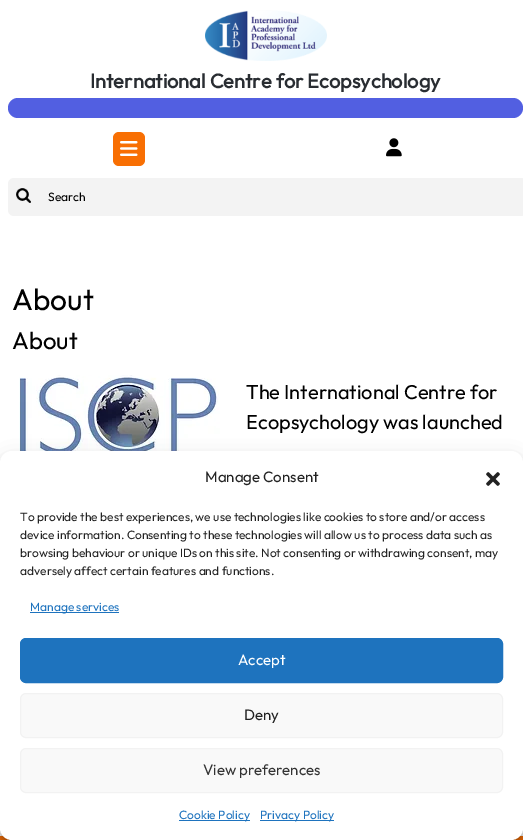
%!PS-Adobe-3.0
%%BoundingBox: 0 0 523 840
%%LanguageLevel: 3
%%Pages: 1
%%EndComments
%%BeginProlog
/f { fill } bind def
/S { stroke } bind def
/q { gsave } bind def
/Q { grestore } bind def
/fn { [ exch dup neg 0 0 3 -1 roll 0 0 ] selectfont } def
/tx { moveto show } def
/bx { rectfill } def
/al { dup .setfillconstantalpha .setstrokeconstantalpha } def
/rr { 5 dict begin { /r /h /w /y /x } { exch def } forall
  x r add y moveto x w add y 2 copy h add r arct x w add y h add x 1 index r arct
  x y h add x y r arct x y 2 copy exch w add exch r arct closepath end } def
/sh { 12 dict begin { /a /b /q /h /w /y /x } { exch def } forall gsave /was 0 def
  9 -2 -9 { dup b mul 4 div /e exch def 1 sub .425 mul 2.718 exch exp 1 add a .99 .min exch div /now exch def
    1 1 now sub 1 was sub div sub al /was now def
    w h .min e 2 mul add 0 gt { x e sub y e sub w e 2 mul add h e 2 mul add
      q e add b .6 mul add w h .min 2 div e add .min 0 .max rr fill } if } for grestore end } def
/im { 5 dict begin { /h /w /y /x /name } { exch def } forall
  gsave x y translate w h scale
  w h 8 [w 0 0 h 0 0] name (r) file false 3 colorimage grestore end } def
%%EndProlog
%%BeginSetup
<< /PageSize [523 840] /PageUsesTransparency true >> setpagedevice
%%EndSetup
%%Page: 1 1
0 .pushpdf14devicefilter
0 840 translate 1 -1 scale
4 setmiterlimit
1 setgray
0 0 523 840 bx
(image0.raw) 205 10 122 51 im
/Outfit-Bold 20 fn
0.161 0.176 0.196 setrgbcolor
(International Centre for Ecopsychology) 90 88 tx
0.322 0.373 0.882 setrgbcolor
8 98 515 20 10 rr f
0.973 0.435 0.012 setrgbcolor
113 132 32 34 6 rr f
(image1.raw) 120 141 18 15 im
(image2.raw) 386 138 16 19 im
0.953 setgray
8 178 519 38 6 rr f
(image3.raw) 16 188 15 15 im
/Outfit-Thin 12 fn
0 setgray
(Search) 48 201 tx
/Outfit-Thin 30 fn
(About) 12 310 tx
/Outfit-Thin 24 fn
(About) 12 349 tx
(image4.raw) 19 375 201 76 im
/Outfit-Thin 20 fn
(The International Centre for) 246 399 tx
(Ecopsychology was launched) 246 429 tx
0.973 0.435 0.012 setrgbcolor
0 836 523 4 bx
0 setgray
0 457 523 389 12 3 0.23 sh
0 461 523 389 12 10 0.19 sh
1 setgray
0 451 523 389 12 rr f
/Outfit-Thin 15 fn
0.133 setgray
(Manage Consent) 205 482 tx
(image5.raw) 486 472 14 14 im
/Outfit-Thin 12 fn
(To provide the best experiences, we use technologies like cookies to store and/or access) 20 521 tx
(device information. Consenting to these technologies will allow us to process data such as) 20 539 tx
(browsing behaviour or unique IDs on this site. Not consenting or withdrawing consent, may) 20 557 tx
(adversely affect certain features and functions.) 20 575 tx
0.118 0.451 0.745 setrgbcolor
30 612 89 1 bx
(Manage services) 30 611 tx
20.5 638.5 482 44 5.5 rr q f Q
S
/Outfit-Thin 15 fn
1 setgray
(Accept) 238 665 tx
0.976 setgray
20.5 693.5 482 44 5.5 rr q f Q
0.949 setgray
S
0.133 setgray
(Deny) 244 720 tx
0.976 setgray
20.5 748.5 482 44 5.5 rr q f Q
0.949 setgray
S
0.2 setgray
(View preferences) 203 775 tx
0.118 0.451 0.745 setrgbcolor
179 820 71 1 bx
/Outfit-Thin 12 fn
(Cookie Policy) 179 819 tx
260 820 74 1 bx
(Privacy Policy) 260 819 tx
.poppdf14devicefilter showpage
%%EOF
